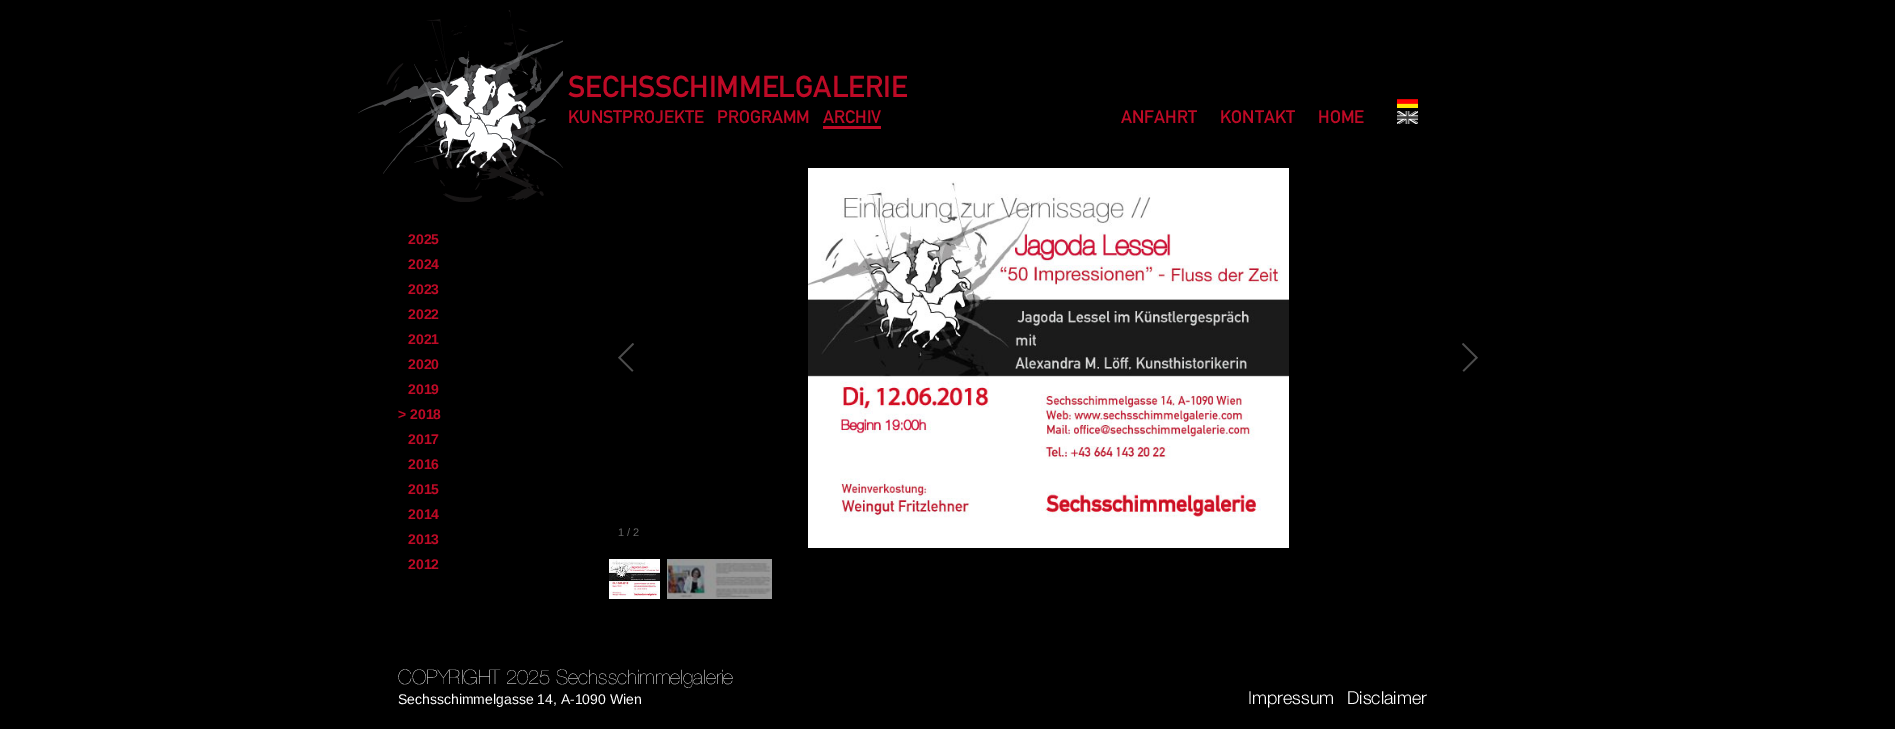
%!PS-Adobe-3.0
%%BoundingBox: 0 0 1895 729
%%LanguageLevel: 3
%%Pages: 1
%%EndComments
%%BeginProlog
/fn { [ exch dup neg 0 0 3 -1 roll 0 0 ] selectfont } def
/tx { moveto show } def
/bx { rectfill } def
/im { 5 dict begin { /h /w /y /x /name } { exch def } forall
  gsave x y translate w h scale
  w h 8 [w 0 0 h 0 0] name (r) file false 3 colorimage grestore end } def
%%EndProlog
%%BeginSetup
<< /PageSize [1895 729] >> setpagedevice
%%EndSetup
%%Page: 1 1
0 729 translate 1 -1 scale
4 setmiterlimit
0 setgray
0 0 1895 729 bx
(image0.raw) 358 10 205 192 im
/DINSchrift-Regular 30 fn
0.745 0.039 0.149 setrgbcolor
(SECHSSCHIMMELGALERIE) 568 97 tx
/DINSchrift-Regular 18 fn
(KUNSTPROJEKTE) 568 123 tx
(PROGRAMM) 717 123 tx
(ARCHIV) 823 123 tx
823 126 58 3 bx
(ANFAHRT) 1121 123 tx
(KONTAKT) 1220 123 tx
(HOME) 1318 123 tx
(image1.raw) 1397 99 21 9 im
(image2.raw) 1397 111 21 13 im
/LiberationSans-Bold 14 fn
(2025) 408 244 tx
(2024) 408 269 tx
(2023) 408 294 tx
(2022) 408 319 tx
(2021) 408 344 tx
(2020) 408 369 tx
(2019) 408 394 tx
(> 2018) 398 419 tx
(2017) 408 444 tx
(2016) 408 469 tx
(2015) 408 494 tx
(2014) 408 519 tx
(2013) 408 544 tx
(2012) 408 569 tx
(image3.raw) 808 168 481 380 im
(image4.raw) 618 343 16 29 im
(image5.raw) 1462 343 16 29 im
/LiberationSans-Regular 11 fn
0.4 setgray
(1 / 2) 618 536 tx
(image6.raw) 609 559 51 40 im
(image7.raw) 667 559 105 40 im
/HelveticaNeue-ExtraLight 20 fn
1 setgray
(COPYRIGHT 2025 Sechsschimmelgalerie) 398 684 tx
/LiberationSans-Regular 14 fn
(Sechsschimmelgasse 14, A-1090 Wien) 398 704 tx
/HelveticaNeue-Light 18 fn
(Impressum) 1248 704 tx
(Disclaimer) 1347 704 tx
showpage
%%EOF
